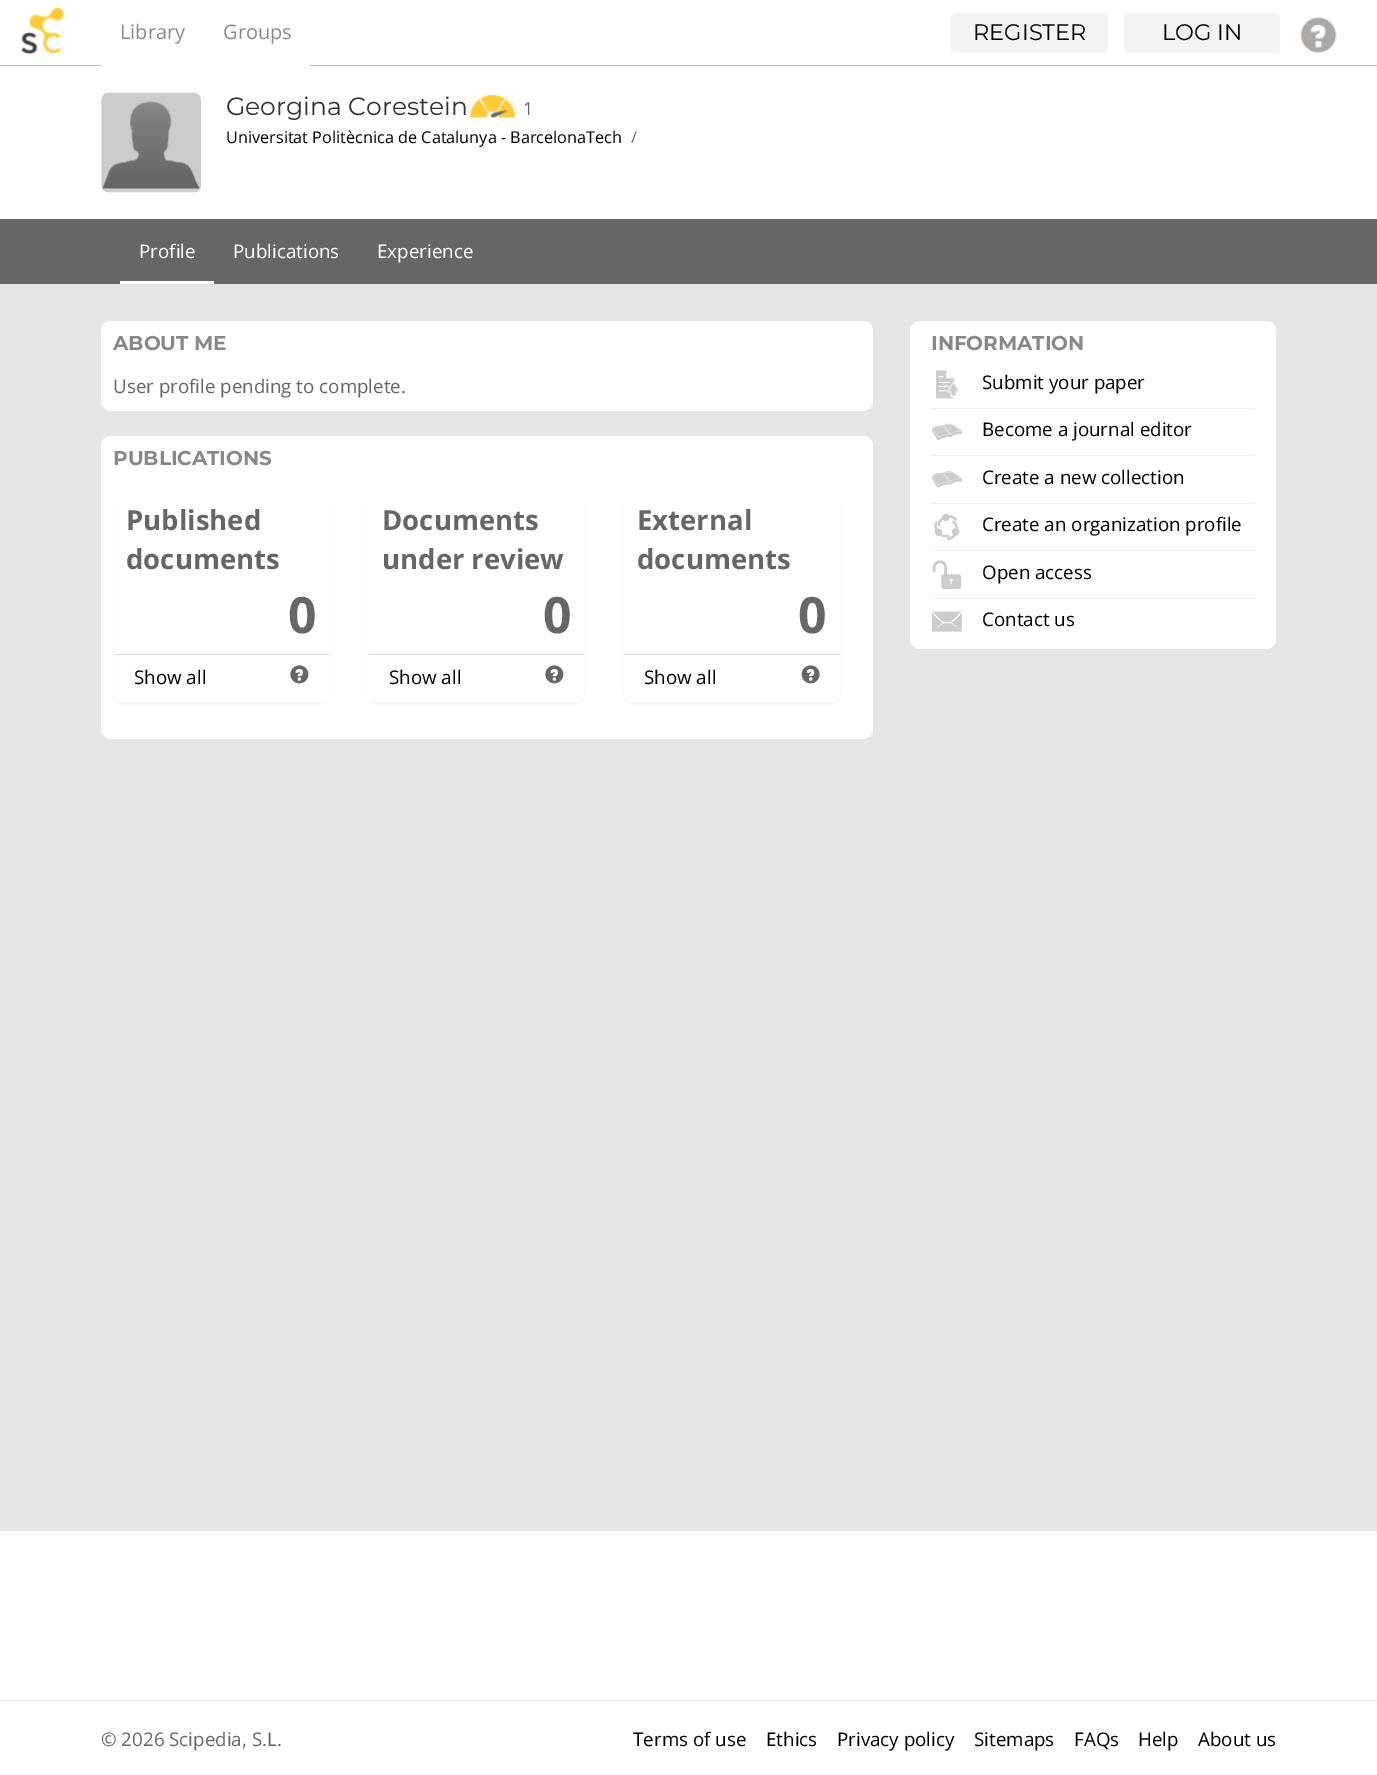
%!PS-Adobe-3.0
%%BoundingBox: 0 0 1377 1775
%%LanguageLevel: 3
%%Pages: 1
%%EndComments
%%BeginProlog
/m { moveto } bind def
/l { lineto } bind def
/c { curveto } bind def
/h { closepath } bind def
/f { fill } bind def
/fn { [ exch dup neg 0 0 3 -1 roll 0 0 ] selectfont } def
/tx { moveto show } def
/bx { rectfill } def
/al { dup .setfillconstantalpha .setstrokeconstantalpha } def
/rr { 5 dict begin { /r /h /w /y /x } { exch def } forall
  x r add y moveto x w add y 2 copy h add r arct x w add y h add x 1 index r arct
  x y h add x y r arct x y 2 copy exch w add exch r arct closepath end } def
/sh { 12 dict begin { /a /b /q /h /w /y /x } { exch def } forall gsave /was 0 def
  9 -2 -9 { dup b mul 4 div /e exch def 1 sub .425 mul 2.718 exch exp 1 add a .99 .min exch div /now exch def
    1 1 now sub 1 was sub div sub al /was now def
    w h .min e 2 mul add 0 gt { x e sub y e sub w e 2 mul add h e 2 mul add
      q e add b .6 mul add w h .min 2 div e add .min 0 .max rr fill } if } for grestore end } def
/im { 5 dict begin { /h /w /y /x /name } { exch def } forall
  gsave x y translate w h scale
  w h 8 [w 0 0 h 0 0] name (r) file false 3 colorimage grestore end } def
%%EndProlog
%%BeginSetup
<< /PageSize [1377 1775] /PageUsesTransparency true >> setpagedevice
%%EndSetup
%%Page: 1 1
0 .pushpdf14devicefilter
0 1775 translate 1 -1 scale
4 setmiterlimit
1 setgray
0 0 1377 1775 bx
0.745 0.753 0.757 setrgbcolor
0 65 1377 1 bx
(image0.raw) 20 7 45 48 im
1 setgray
101 65 209 1 bx
/OpenSans-Regular 20 fn
0.533 setgray
(Library) 120 39 tx
(Groups) 223 39 tx
0.953 setgray
951 13 157 40 5 rr f
/Montserrat-Regular 22.5 fn
0 setgray
(REGISTER) 973 40 tx
0.953 setgray
1124 13 156 40 5 rr f
0 setgray
(LOG IN) 1162 40 tx
(image1.raw) 1300 17 37 37 im
(image2.raw) 101 92 100 101 im
/Montserrat-Regular 25 fn
0.2 setgray
(Georgina Corestein) 226 115 tx
(image3.raw) 469 94 47 24 im
/OpenSans-Regular 18 fn
0.4 setgray
(1) 523 115 tx
/OpenSans-Regular 16.25 fn
0 setgray
(Universitat Politècnica de Catalunya - BarcelonaTech) 226 143 tx
0.4 setgray
(/) 631 143 tx
0 219 1377 65 bx
1 setgray
120 281 94 3 bx
/OpenSans-Regular 18.75 fn
(Profile) 139 258 tx
(Publications) 233 258 tx
(Experience) 377 258 tx
0.902 setgray
0 284 1377 1247 bx
1 setgray
101 321 772 90 10 rr f
/Montserrat-Bold 20 fn
0.533 setgray
(ABOUT ME) 113 350 tx
/OpenSans-Regular 18.75 fn
0.4 setgray
(User profile pending to complete.) 113 393 tx
1 setgray
101 436 772 303 10 rr f
/Montserrat-Bold 20 fn
0.533 setgray
(PUBLICATIONS) 113 465 tx
0 setgray
113 490 217 214 10 0.5 0.05 sh
1 setgray
113 489 217 214 10 rr f
/OpenSans-Bold 27.5 fn
0.4 setgray
(Published) 126 530 tx
(documents) 126 569 tx
/OpenSans-Bold 50 fn
(0) 288 633 tx
1 setgray
114 654 m 329 654 l 329 697 l 329 699 327 701 325 701 c 118 701 l 116 701 114 699 114 697 c h f
0.867 setgray
114 654 215 1 bx
/OpenSans-Regular 18.75 fn
0 setgray
(Show all) 134 684 tx
(image4.raw) 290 665 19 19 im
368 490 217 214 10 0.5 0.05 sh
1 setgray
368 489 217 214 10 rr f
/OpenSans-Bold 27.5 fn
0.4 setgray
(Documents) 382 530 tx
(under review) 382 569 tx
/OpenSans-Bold 50 fn
(0) 543 633 tx
1 setgray
369 654 m 584 654 l 584 697 l 584 699 582 701 580 701 c 373 701 l 371 701 369 699 369 697 c h f
0.867 setgray
369 654 215 1 bx
/OpenSans-Regular 18.75 fn
0 setgray
(Show all) 389 684 tx
(image4.raw) 545 665 19 19 im
623 490 218 214 10 0.5 0.05 sh
1 setgray
623 489 218 214 10 rr f
/OpenSans-Bold 27.5 fn
0.4 setgray
(External) 637 530 tx
(documents) 637 569 tx
/OpenSans-Bold 50 fn
(0) 798 633 tx
1 setgray
624 654 m 840 654 l 840 697 l 840 699 838 701 836 701 c 628 701 l 626 701 624 699 624 697 c h f
0.867 setgray
624 654 216 1 bx
/OpenSans-Regular 18.75 fn
0 setgray
(Show all) 644 684 tx
(image5.raw) 801 665 19 19 im
1 setgray
910 321 366 328 10 rr f
/Montserrat-Bold 20 fn
0.533 setgray
(INFORMATION) 931 350 tx
(image6.raw) 936 370 23 29 im
/OpenSans-Regular 18.75 fn
0 setgray
(Submit your paper) 982 389 tx
0.933 setgray
931 408 324 1 bx
(image7.raw) 931 423 31 18 im
0 setgray
(Become a journal editor) 982 436 tx
0.933 setgray
931 455 324 1 bx
(image8.raw) 931 471 31 17 im
0 setgray
(Create a new collection) 982 484 tx
0.933 setgray
931 503 324 1 bx
(image9.raw) 934 513 26 27 im
0 setgray
(Create an organization profile) 982 531 tx
0.933 setgray
931 550 324 1 bx
(image10.raw) 932 560 30 29 im
0 setgray
(Open access) 982 579 tx
0.933 setgray
931 598 324 1 bx
(image11.raw) 931 611 31 21 im
0 setgray
(Contact us) 982 626 tx
0.933 setgray
0 1700 1377 1 bx
0.4 setgray
(© 2026 Scipedia, S.L.) 101 1746 tx
0 setgray
(Terms of use) 633 1746 tx
(Ethics) 766 1746 tx
(Privacy policy) 837 1746 tx
(Sitemaps) 974 1746 tx
(FAQs) 1074 1746 tx
(Help) 1138 1746 tx
(About us) 1198 1746 tx
.poppdf14devicefilter showpage
%%EOF
